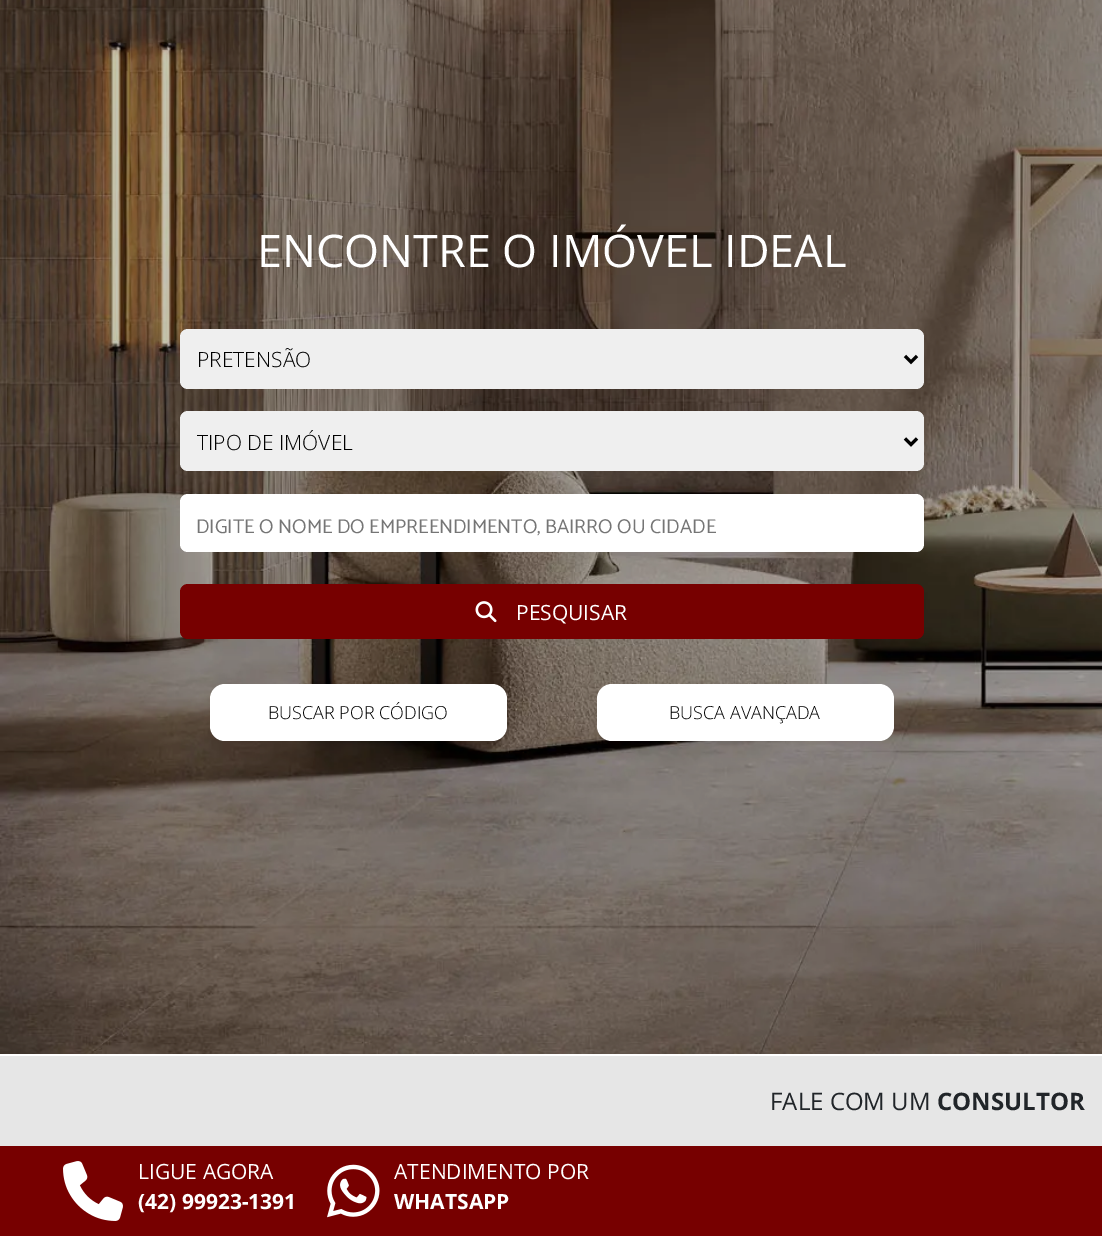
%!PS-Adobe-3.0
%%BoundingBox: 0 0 1102 1236
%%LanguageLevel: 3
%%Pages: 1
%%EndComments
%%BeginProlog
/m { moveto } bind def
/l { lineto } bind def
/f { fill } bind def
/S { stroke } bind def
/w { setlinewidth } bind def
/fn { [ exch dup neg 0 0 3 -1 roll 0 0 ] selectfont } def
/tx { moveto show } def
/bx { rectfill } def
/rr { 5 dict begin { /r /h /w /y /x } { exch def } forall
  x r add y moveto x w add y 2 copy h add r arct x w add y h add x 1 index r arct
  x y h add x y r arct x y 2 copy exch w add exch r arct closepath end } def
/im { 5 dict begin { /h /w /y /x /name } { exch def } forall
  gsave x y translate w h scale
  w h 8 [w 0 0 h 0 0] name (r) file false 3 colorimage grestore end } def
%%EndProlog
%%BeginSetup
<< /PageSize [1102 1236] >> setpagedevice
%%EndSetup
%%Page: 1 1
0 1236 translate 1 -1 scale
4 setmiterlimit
1 setgray
0 0 1102 1236 bx
(image0.raw) 0 0 1102 1054 im
/OpenSans-Regular 45 fn
(ENCONTRE O IMÓVEL IDEAL) 257 267 tx
0.937 setgray
180 329 744 60 8 rr f
0 setgray
3 w
905 356 m 911 362 l 917 356 l S
/OpenSans-Light 21 fn
(PRETENSÃO) 197 367 tx
0.937 setgray
180 411 744 60 8 rr f
0 setgray
905 438.5 m 911 444.5 l 917 438.5 l S
(TIPO DE IMÓVEL) 197 450 tx
1 setgray
180 494 744 58 8 rr f
/Catamaran-Regular 20 fn
0.459 setgray
(DIGITE O NOME DO EMPREENDIMENTO, BAIRRO OU CIDADE) 196 533 tx
0.467 0 0 setrgbcolor
180 584 744 55 8 rr f
(image1.raw) 475 601 22 22 im
/OpenSans-Regular 21 fn
1 setgray
(PESQUISAR) 516 620 tx
210 684 297 57 15 rr f
/OpenSans-Light 18 fn
0 setgray
(BUSCAR POR CÓDIGO) 268 719 tx
1 setgray
597 684 297 57 15 rr f
0 setgray
(BUSCA AVANÇADA) 669 719 tx
0.902 setgray
0 1056 1102 90 bx
/OpenSans-Regular 24 fn
0.129 0.145 0.161 setrgbcolor
(FALE COM UM) 770 1110 tx
/OpenSans-Bold 24 fn
(CONSULTOR) 937 1110 tx
0.467 0 0 setrgbcolor
0 1146 1102 90 bx
(image2.raw) 63 1161 60 60 im
/OpenSans-Regular 21 fn
1 setgray
(LIGUE AGORA) 138 1179 tx
/OpenSans-Bold 21 fn
(\(42\) 99923-1391) 138 1209 tx
(image3.raw) 327 1164 53 54 im
/OpenSans-Regular 21 fn
(ATENDIMENTO POR) 394 1179 tx
/OpenSans-Bold 21 fn
(WHATSAPP) 394 1209 tx
showpage
%%EOF
